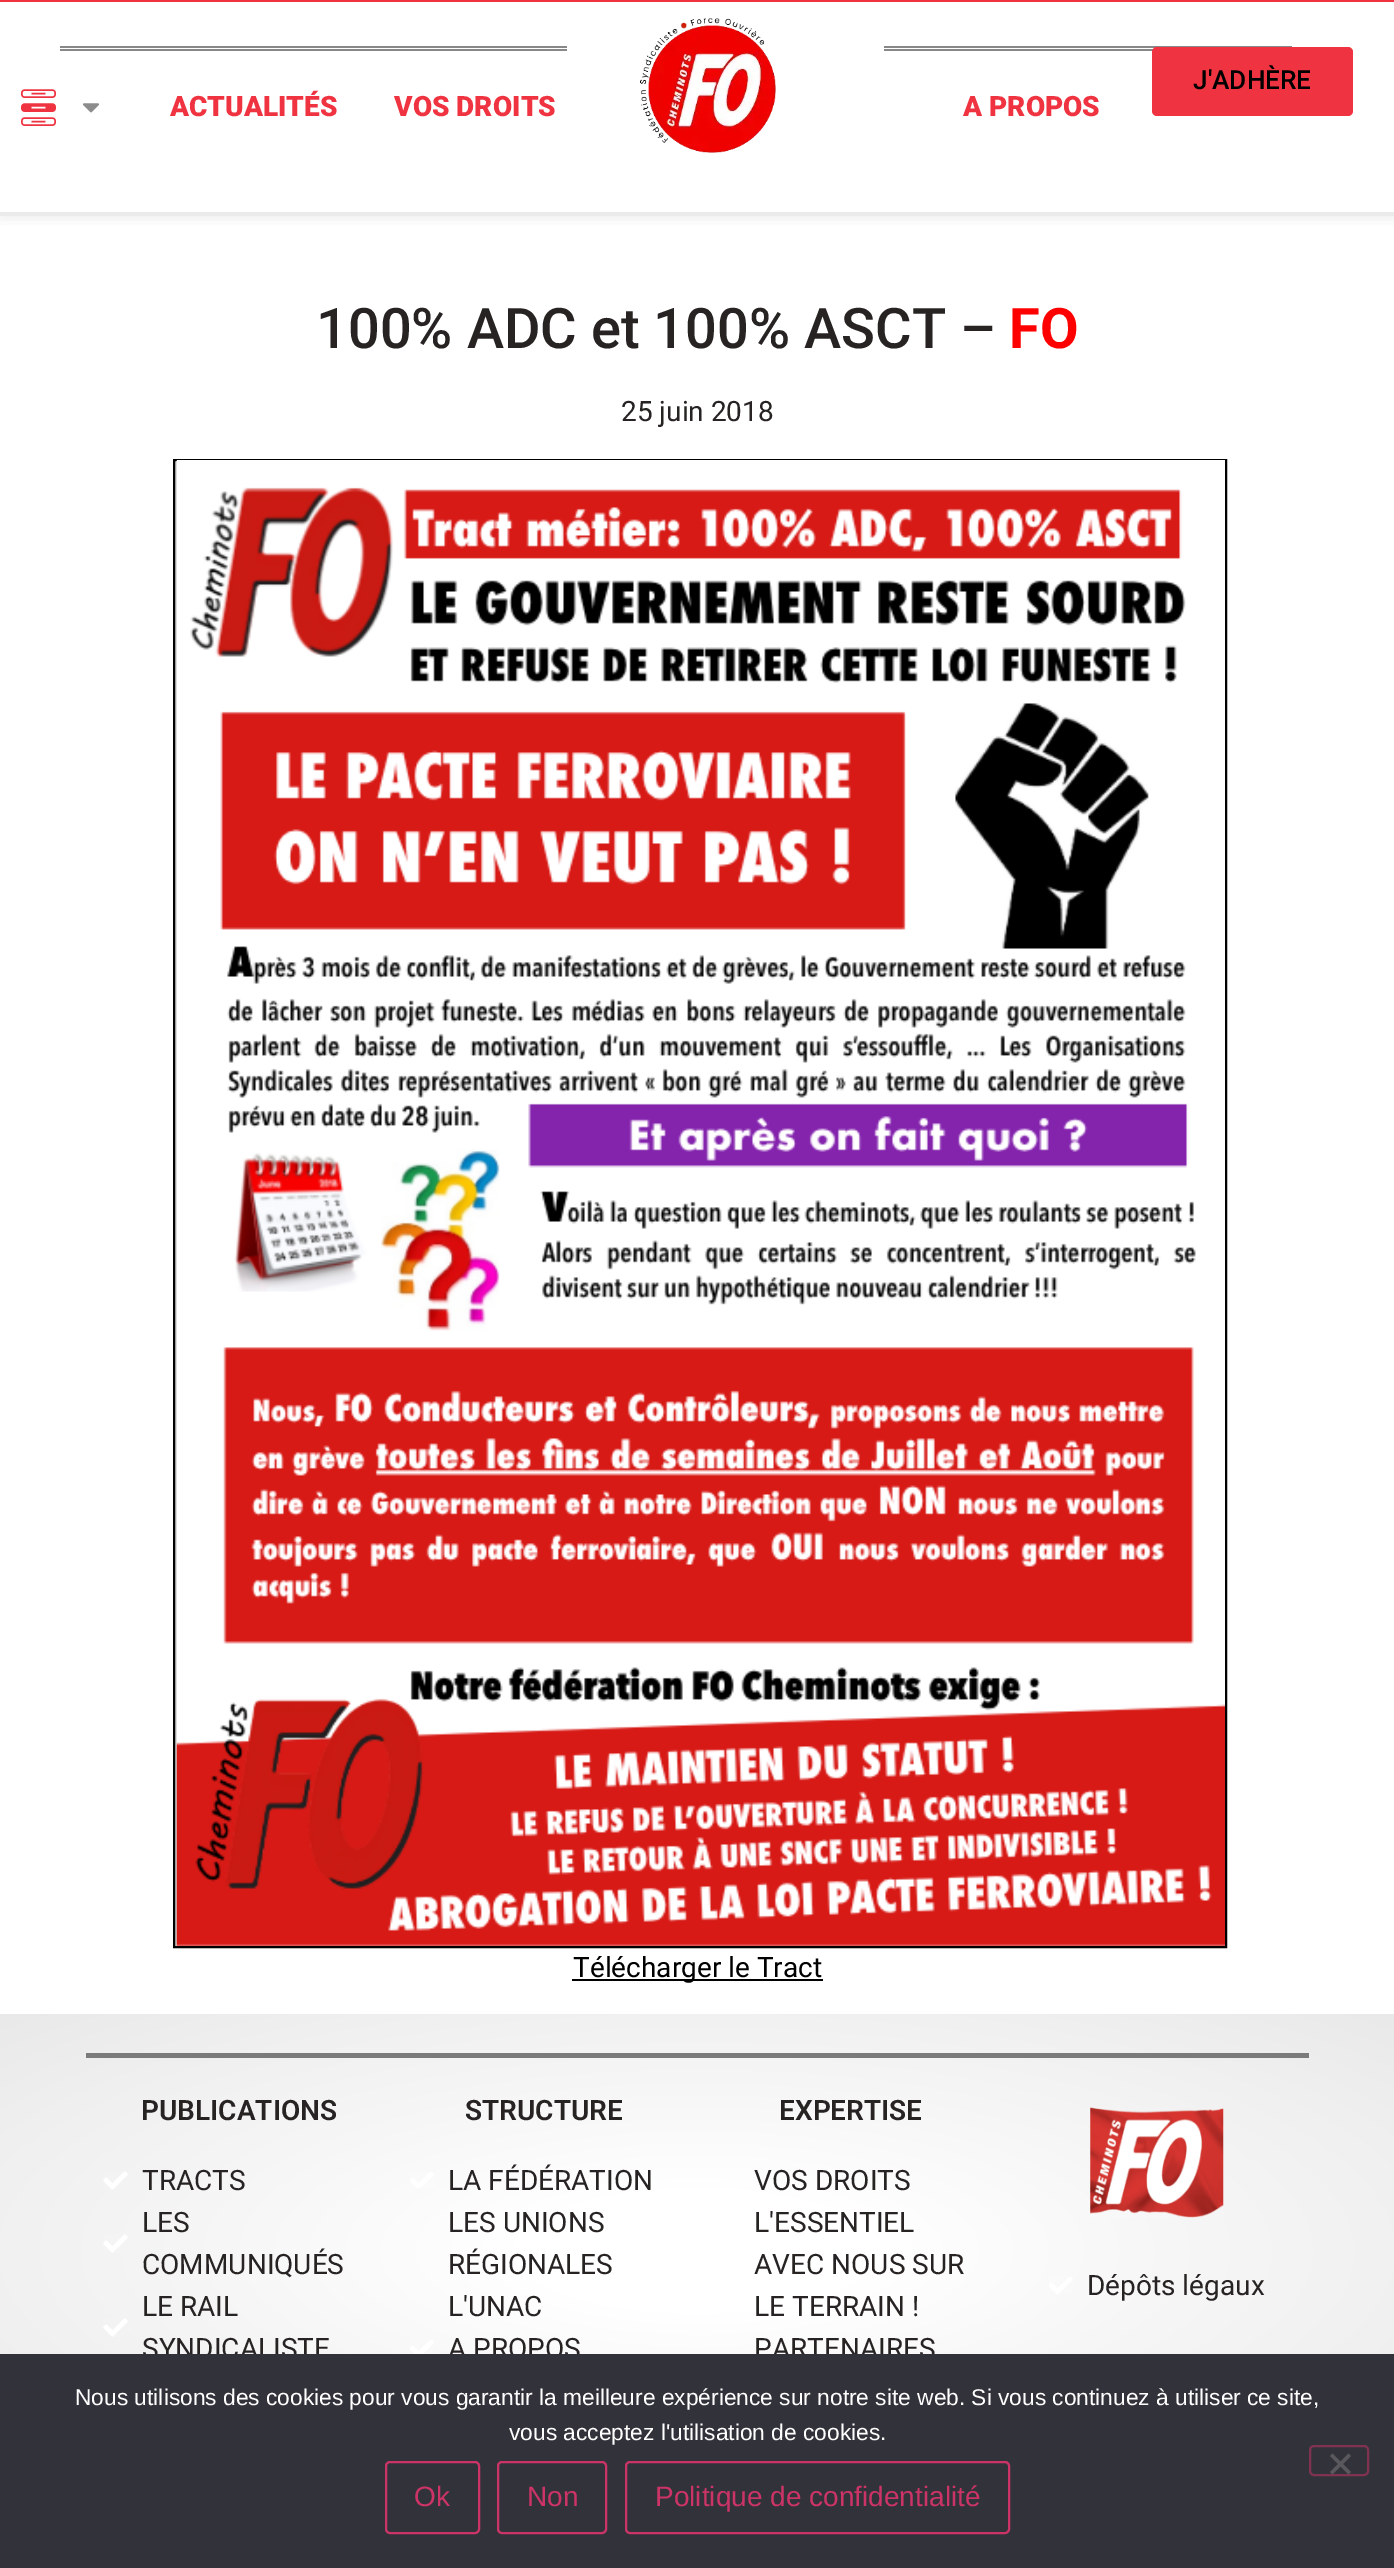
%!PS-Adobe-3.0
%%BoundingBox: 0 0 1394 2568
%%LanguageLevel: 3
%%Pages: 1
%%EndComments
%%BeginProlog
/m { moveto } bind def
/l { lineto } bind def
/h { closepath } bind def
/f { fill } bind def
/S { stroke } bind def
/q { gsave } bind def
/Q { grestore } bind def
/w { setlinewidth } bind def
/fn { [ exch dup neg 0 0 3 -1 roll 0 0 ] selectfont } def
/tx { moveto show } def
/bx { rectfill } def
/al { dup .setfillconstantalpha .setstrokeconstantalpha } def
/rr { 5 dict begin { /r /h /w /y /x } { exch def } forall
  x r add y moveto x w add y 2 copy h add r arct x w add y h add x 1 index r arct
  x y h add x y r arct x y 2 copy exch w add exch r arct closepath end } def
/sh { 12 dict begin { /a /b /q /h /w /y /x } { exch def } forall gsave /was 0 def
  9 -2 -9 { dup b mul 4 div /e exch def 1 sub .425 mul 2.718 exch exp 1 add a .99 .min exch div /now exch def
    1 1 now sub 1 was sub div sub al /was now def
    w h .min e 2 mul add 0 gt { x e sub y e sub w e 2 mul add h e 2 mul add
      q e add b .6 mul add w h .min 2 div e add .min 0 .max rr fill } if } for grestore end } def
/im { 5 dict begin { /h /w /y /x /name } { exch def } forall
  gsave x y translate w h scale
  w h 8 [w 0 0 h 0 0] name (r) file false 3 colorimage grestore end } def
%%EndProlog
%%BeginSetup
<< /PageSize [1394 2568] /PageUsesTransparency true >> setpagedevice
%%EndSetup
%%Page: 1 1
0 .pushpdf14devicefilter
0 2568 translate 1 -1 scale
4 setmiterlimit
1 setgray
0 0 1394 2568 bx
0.482 setgray
60 46 507 2 bx
60 49 507 2 bx
884 46 408 2 bx
884 49 269 2 bx
q
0 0 m 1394 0 l 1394 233 l 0 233 l h 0 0 m 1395 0 l 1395 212 l 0 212 l h eoclip newpath
0 setgray
0 -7 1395 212 0 9 0.5 sh
Q
0.937 0.2 0.251 setrgbcolor
0 0 1394 2 bx
0.1 al
1 setgray
60 46 1232 5 bx
1 al
(image0.raw) 640 18 136 135 im
0.937 0.2 0.251 setrgbcolor
1152 47 201 69 5 rr f
/Roboto-Medium 26.25 fn
0 setgray
(J'ADHÈRE) 1193 89 tx
(image1.raw) 21 89 35 37 im
(image2.raw) 82 103 18 10 im
/Roboto-Black 28 fn
0.937 0.2 0.251 setrgbcolor
(ACTUALITÉS) 170 116 tx
(VOS DROITS) 394 116 tx
(A PROPOS) 963 116 tx
/Roboto-Medium 56 fn
0.157 0.137 0.137 setrgbcolor
(100% ADC et 100% ASCT –) 316 348 tx
/Roboto-Bold 56 fn
1 0 0 setrgbcolor
(FO) 1009 348 tx
/Roboto-Regular 28 fn
0.157 0.137 0.137 setrgbcolor
(25 juin 2018) 621 421 tx
0.827 setgray
175 461 2 1485 bx
0 setgray
2 w
174 460 1052 1487 rectstroke
(image3.raw) 176 460 1049 1486 im
572 1979 251 2 bx
(Télécharger le Tract) 573 1977 tx
q 0 2014 m 1394 2014 l 1394 2354 l 0 2354 l h clip newpath 697 2251 translate 986 335 scale
<< /ShadingType 3 /ColorSpace /DeviceRGB /Coords [0 0 0 0 0 1] /Extend [true true] /Function << /FunctionType 3 /Domain [0 1] /Functions [<< /FunctionType 2 /Domain [0 1] /C0 [1 1 1] /C1 [1 1 1] /N 1 >> << /FunctionType 2 /Domain [0 1] /C0 [1 1 1] /C1 [0.914 0.914 0.914] /N 1 >>] /Bounds [0.17] /Encode [0 1 0 1] >> >> shfill Q
0.482 setgray
86 2053 1223 5 bx
/Roboto-SemiBold 28 fn
0.157 0.137 0.137 setrgbcolor
(PUBLICATIONS) 141 2120 tx
(image4.raw) 103 2171 25 19 im
/Roboto-Regular 28 fn
(TRACTS) 142 2190 tx
(image5.raw) 103 2234 25 19 im
(LES) 142 2232 tx
(COMMUNIQUÉS) 142 2274 tx
(image6.raw) 103 2318 25 19 im
(LE RAIL) 142 2316 tx
(SYNDICALISTE) 142 2358 tx
/Roboto-SemiBold 28 fn
(STRUCTURE) 465 2120 tx
(image7.raw) 410 2172 24 16 im
/Roboto-Regular 28 fn
(LA FÉDÉRATION) 448 2190 tx
(LES UNIONS) 448 2232 tx
(RÉGIONALES) 448 2274 tx
(L'UNAC) 448 2316 tx
(image8.raw) 410 2340 24 14 im
(A PROPOS) 448 2358 tx
/Roboto-SemiBold 28 fn
(EXPERTISE) 779 2120 tx
/Roboto-Regular 28 fn
(VOS DROITS) 754 2190 tx
(L'ESSENTIEL) 754 2232 tx
(AVEC NOUS SUR) 754 2274 tx
(LE TERRAIN !) 754 2316 tx
(PARTENAIRES) 754 2358 tx
(image9.raw) 1090 2107 134 111 im
(image10.raw) 1049 2277 24 17 im
(Dépôts légaux) 1087 2295 tx
0.196 0.196 0.227 setrgbcolor
0 2354 1394 214 bx
/LiberationSans-Regular 22.75 fn
1 setgray
(Nous utilisons des cookies pour vous garantir la meilleure expérience sur notre site web. Si vous continuez à utiliser ce site,) 75 2405 tx
(vous acceptez l'utilisation de cookies.) 509 2440 tx
0.498 0.2 0.314 setrgbcolor
1310 2446 58 29 4 rr S
0.349 0.349 0.365 setrgbcolor
1348.5 2453.5 m 1351 2456 l 1332.5 2474.5 l 1330 2472 l h f
1330 2456 m 1332.5 2453.5 l 1351 2472 l 1348.5 2474.5 l h f
0.8 0.2 0.4 setrgbcolor
386 2462 93 71 4 rr S
/LiberationSans-Regular 28 fn
(Ok) 414 2506 tx
498 2462 108 71 4 rr S
(Non) 527 2506 tx
626 2462 383 71 4 rr S
(Politique de confidentialité) 655 2506 tx
.poppdf14devicefilter showpage
%%EOF
